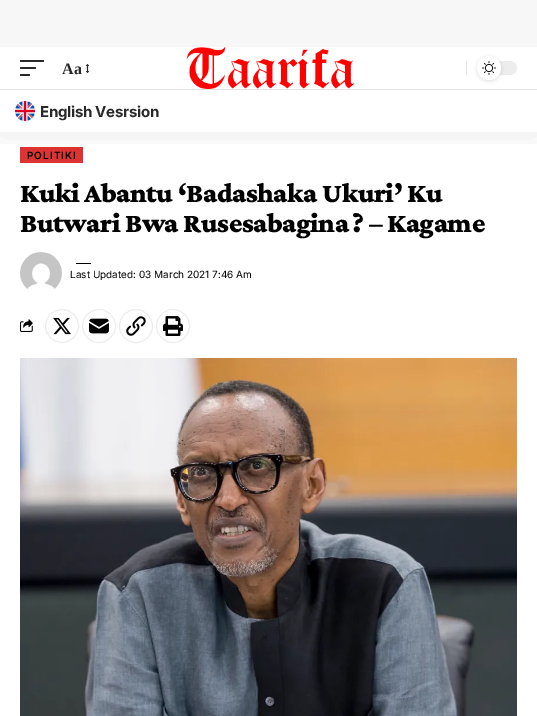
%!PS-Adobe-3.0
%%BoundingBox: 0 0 537 716
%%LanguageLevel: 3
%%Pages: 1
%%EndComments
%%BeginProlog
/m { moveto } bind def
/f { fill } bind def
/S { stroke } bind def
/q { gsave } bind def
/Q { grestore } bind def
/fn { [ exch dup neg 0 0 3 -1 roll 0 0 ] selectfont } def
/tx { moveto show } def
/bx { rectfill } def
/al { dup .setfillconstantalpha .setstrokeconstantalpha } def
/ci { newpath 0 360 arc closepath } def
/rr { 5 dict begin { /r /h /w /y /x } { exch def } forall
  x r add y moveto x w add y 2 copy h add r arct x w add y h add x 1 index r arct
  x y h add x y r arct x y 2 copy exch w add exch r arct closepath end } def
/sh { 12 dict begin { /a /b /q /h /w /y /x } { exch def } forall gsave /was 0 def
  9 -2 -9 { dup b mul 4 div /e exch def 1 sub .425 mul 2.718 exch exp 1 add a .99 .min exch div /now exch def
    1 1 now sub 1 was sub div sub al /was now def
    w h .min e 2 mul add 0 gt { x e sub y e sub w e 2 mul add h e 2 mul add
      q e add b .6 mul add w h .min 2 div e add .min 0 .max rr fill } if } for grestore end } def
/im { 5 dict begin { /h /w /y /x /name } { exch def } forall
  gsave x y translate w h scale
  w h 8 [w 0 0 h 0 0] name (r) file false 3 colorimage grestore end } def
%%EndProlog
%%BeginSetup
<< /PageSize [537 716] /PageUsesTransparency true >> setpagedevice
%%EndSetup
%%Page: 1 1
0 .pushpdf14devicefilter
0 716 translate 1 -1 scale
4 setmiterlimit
1 setgray
0 0 537 716 bx
0.969 setgray
0 0 537 47 bx
0.867 0.2 0.2 setrgbcolor
20 147 63 16 bx
q
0 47 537 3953 rectclip
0 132 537 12 rectclip
0 setgray
0 51 537 85 0 15 0.07 sh
Q
0.157 setgray
20 60 24 2 1 rr f
20 67 16 2 1 rr f
20 74 10 2 1 rr f
/LiberationSerif-Bold 16 fn
(Aa) 62 74 tx
(image0.raw) 85 64 5 9 im
(image1.raw) 186 47 169 42 im
0.894 setgray
466 61 1 14 bx
0.929 setgray
477 61 40 14 7 rr f
0 setgray
477 57 24 24 12 2 0.12 sh
1 setgray
489 68 12 ci f
(image2.raw) 482 61 14 14 im
0.894 setgray
0 89 537 1 bx
(image3.raw) 15 101 20 20 im
/Inter-Bold 15 fn
0.157 setgray
40 117 m -0.25 0 (English Vesrsion) ashow
/Inter-SemiBold 10 fn
0 setgray
27 159 m 1 0 (POLITIKI) ashow
/CrimsonPro-Black 28 fn
20 202 m -0.5 0 (Kuki Abantu ‘Badashaka Ukuri’ Ku) ashow
20 232 m -0.5 0 (Butwari Bwa Rusesabagina ? – Kagame) ashow
(image4.raw) 20 252 42 37 im
76 263 15 1 bx
/Inter-Regular 10 fn
(Last Updated: 03 March 2021 7:46 Am) 70 278 tx
(image5.raw) 20 319 13 13 im
0.929 setgray
62 326 16.5 ci S
(image6.raw) 53 317 18 18 im
99 326 16.5 ci S
(image7.raw) 89 318 20 16 im
136 326 16.5 ci S
(image8.raw) 126 316 20 20 im
173 326 16.5 ci S
(image9.raw) 163 316 20 20 im
(image10.raw) 20 358 497 358 im
.poppdf14devicefilter showpage
%%EOF
